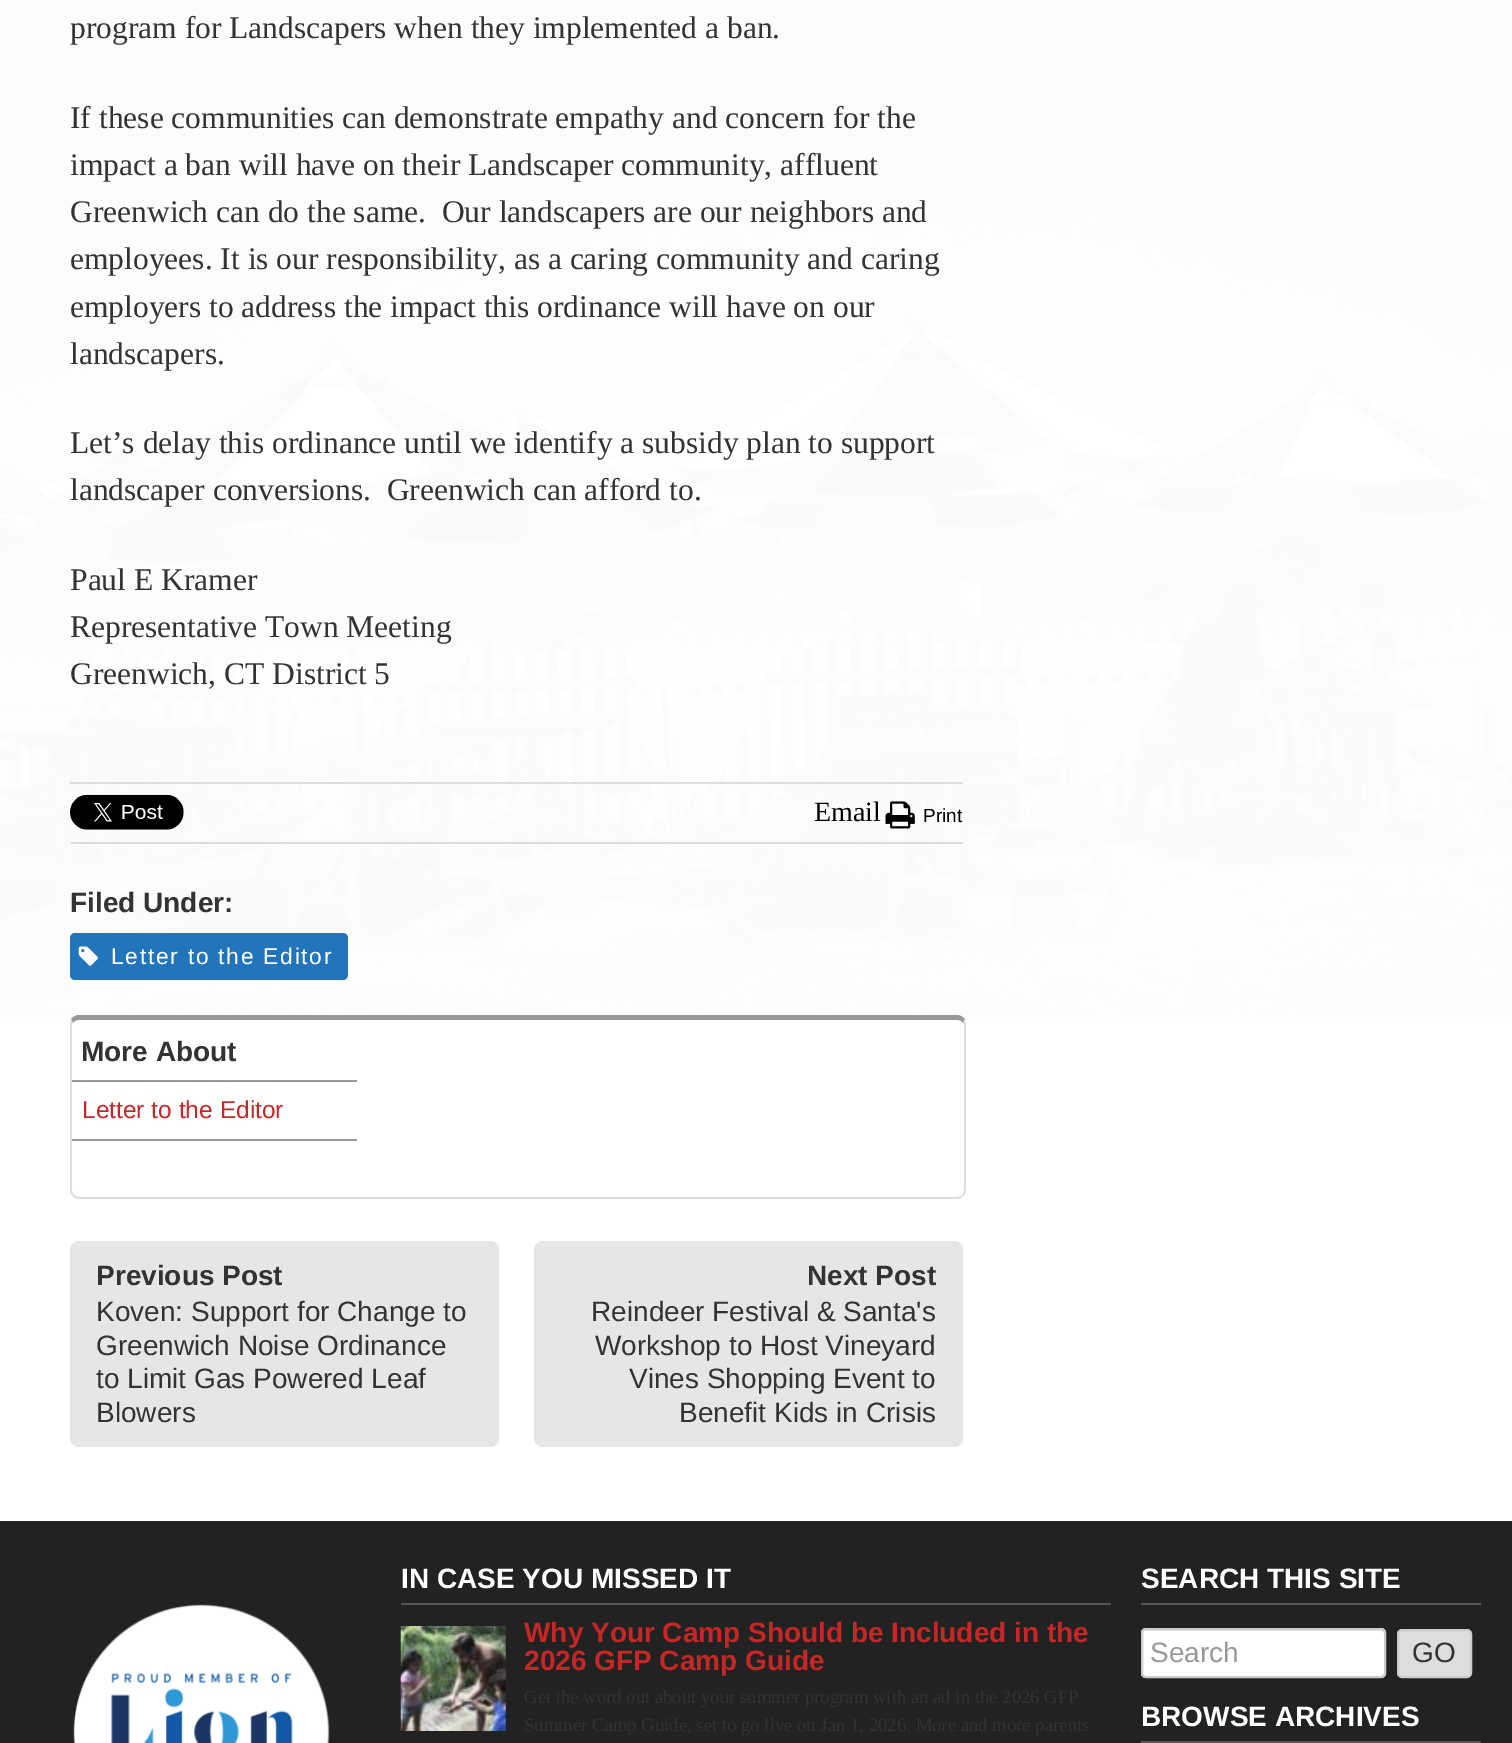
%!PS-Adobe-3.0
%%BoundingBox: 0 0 1512 1743
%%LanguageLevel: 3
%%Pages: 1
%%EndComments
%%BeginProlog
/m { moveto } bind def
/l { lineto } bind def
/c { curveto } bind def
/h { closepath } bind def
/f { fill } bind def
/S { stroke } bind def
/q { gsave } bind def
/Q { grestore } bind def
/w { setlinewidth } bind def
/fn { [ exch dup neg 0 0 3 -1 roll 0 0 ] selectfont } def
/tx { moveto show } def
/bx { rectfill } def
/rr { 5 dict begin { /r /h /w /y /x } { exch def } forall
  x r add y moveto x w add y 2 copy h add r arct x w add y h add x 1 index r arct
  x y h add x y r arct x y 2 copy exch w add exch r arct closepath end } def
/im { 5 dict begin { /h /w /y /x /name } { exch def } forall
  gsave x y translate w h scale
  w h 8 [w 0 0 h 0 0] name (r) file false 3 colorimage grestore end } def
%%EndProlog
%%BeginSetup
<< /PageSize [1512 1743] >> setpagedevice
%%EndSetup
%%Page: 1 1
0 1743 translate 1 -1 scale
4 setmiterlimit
1 setgray
0 0 1512 1743 bx
(image0.raw) 0 0 1512 1017 im
/LiberationSerif-Regular 31.5 fn
0.2 setgray
(program for Landscapers when they implemented a ban.) 70 38 tx
(If these communities can demonstrate empathy and concern for the) 70 128 tx
(impact a ban will have on their Landscaper community, affluent) 70 175 tx
(Greenwich can do the same.  Our landscapers are our neighbors and) 70 222 tx
(employees. It is our responsibility, as a caring community and caring) 70 269 tx
(employers to address the impact this ordinance will have on our) 70 317 tx
(landscapers.) 70 364 tx
(Let’s delay this ordinance until we identify a subsidy plan to support) 70 453 tx
(landscaper conversions.  Greenwich can afford to.) 70 500 tx
(Paul E Kramer) 70 590 tx
(Representative Town Meeting) 70 637 tx
(Greenwich, CT District 5) 70 684 tx
0.867 setgray
70 782 893 2 bx
70 842 893 2 bx
(image1.raw) 70 794 114 36 im
/LiberationSerif-Regular 28 fn
0 setgray
(Email) 814 821 tx
(image2.raw) 885 801 30 28 im
/LiberationSans-Regular 19 fn
(Print) 923 822 tx
/LiberationSans-Bold 28 fn
0.2 setgray
(Filed Under:) 70 912 tx
0.133 0.459 0.733 setrgbcolor
70 933 278 47 5 rr f
(image3.raw) 78 946 20 20 im
/LiberationSans-Regular 22.75 fn
1 setgray
111 964 m 1.75 0 (Letter to the Editor) ashow
0.6 setgray
79 1015 m 76 1015 73 1017 71 1019 c 73 1023 l 74 1021 76 1020 79 1020 c 957 1020 l 960 1020 962 1021 963 1023 c 965 1019 l 963 1017 960 1015 957 1015 c h f
0.867 setgray
966 1190 m 966 1024 l 966 1022 965 1021 965 1019 c 963 1023 l 964 1024 l 964 1190 l 964 1192 963 1194 962 1195 c 963 1196 l 965 1195 966 1192 966 1190 c h f
77 1199 m 75 1198 74 1197 73 1196 c 74 1195 l 75 1196 77 1197 79 1197 c 957 1197 l 959 1197 961 1196 962 1195 c 963 1196 l 962 1197 961 1198 959 1199 c h f
70 1024 m 70 1190 l 70 1192 71 1195 73 1196 c 74 1195 l 73 1194 72 1192 72 1190 c 72 1024 l 73 1023 l 71 1019 l 71 1021 70 1022 70 1024 c h f
/LiberationSans-Bold 28 fn
0.2 setgray
(More About) 81 1061 tx
0.6 setgray
72 1080 285 2 bx
72 1139 285 2 bx
/LiberationSans-Regular 24.5 fn
0.773 0.149 0.149 setrgbcolor
(Letter to the Editor) 82 1118 tx
0.902 setgray
70 1241 429 206 9 rr f
/LiberationSans-Bold 28 fn
0.2 setgray
(Previous Post) 96 1285 tx
/LiberationSans-Regular 28 fn
(Koven: Support for Change to) 96 1321 tx
(Greenwich Noise Ordinance) 96 1355 tx
(to Limit Gas Powered Leaf) 96 1388 tx
(Blowers) 96 1422 tx
0.902 setgray
534 1241 429 206 9 rr f
/LiberationSans-Bold 28 fn
0.2 setgray
(Next Post) 807 1285 tx
/LiberationSans-Regular 28 fn
(Reindeer Festival & Santa's) 591 1321 tx
(Workshop to Host Vineyard) 595 1355 tx
(Vines Shopping Event to) 629 1388 tx
(Benefit Kids in Crisis) 679 1422 tx
0.133 setgray
0 1521 1512 222 bx
(image4.raw) 73 1604 257 139 im
0.333 setgray
401 1603 710 2 bx
/LiberationSans-Bold 28 fn
1 setgray
(IN CASE YOU MISSED IT) 401 1588 tx
(image5.raw) 400 1626 106 105 im
0.773 0.149 0.149 setrgbcolor
(Why Your Camp Should be Included in the) 524 1642 tx
(2026 GFP Camp Guide) 524 1670 tx
/LiberationSerif-Regular 18.7 fn
0.2 setgray
(Get the word out about your summer program with an ad in the 2026 GFP) 524 1703 tx
(Summer Camp Guide, set to go live on Jan 1, 2026. More and more parents) 524 1731 tx
0.333 setgray
1141 1603 340 2 bx
/LiberationSans-Bold 28 fn
1 setgray
(SEARCH THIS SITE) 1141 1588 tx
1141 1628 245 50 5 rr f
0.925 setgray
1146 1631 m 1381 1631 l 1383 1631 1384 1633 1384 1634 c 1384 1631 1383 1629 1380 1629 c 1147 1629 l 1144 1629 1143 1631 1143 1634 c 1143 1633 1144 1631 1146 1631 c h f
0.8 setgray
2 w
1142 1629 243 48 4 rr S
/LiberationSans-Regular 28 fn
0.6 setgray
(Search) 1150 1662 tx
0.867 setgray
1398 1630 73 47 4 rr q f Q
0.8 setgray
S
0.2 setgray
(GO) 1412 1662 tx
0.333 setgray
1141 1741 340 2 bx
/LiberationSans-Bold 28 fn
1 setgray
(BROWSE ARCHIVES) 1141 1726 tx
showpage
%%EOF
